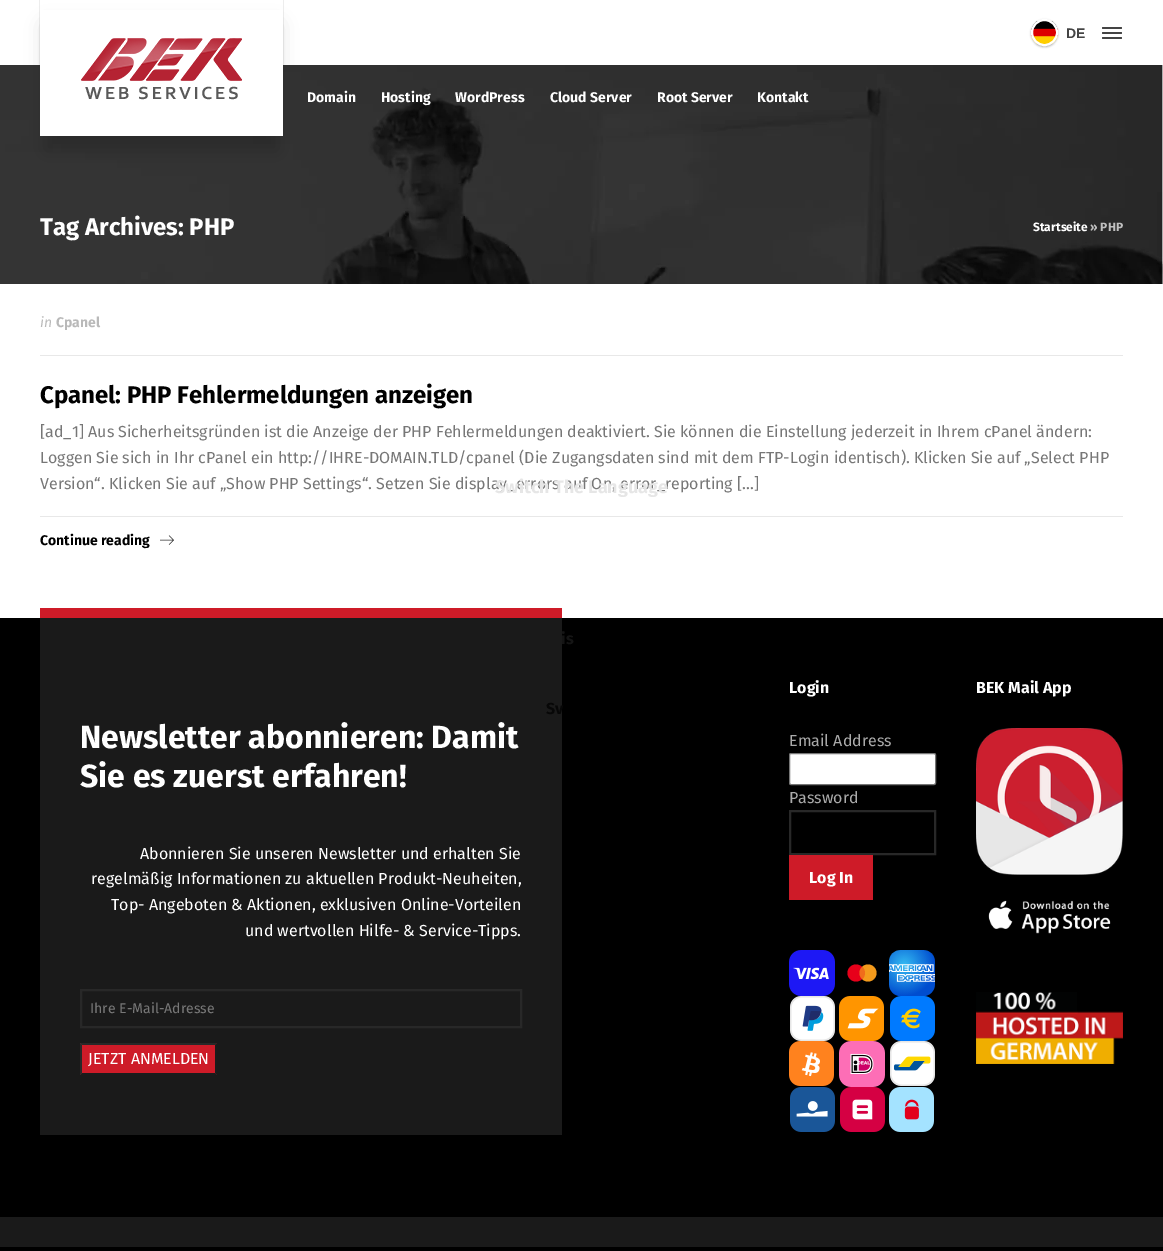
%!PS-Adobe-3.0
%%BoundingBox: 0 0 1163 1251
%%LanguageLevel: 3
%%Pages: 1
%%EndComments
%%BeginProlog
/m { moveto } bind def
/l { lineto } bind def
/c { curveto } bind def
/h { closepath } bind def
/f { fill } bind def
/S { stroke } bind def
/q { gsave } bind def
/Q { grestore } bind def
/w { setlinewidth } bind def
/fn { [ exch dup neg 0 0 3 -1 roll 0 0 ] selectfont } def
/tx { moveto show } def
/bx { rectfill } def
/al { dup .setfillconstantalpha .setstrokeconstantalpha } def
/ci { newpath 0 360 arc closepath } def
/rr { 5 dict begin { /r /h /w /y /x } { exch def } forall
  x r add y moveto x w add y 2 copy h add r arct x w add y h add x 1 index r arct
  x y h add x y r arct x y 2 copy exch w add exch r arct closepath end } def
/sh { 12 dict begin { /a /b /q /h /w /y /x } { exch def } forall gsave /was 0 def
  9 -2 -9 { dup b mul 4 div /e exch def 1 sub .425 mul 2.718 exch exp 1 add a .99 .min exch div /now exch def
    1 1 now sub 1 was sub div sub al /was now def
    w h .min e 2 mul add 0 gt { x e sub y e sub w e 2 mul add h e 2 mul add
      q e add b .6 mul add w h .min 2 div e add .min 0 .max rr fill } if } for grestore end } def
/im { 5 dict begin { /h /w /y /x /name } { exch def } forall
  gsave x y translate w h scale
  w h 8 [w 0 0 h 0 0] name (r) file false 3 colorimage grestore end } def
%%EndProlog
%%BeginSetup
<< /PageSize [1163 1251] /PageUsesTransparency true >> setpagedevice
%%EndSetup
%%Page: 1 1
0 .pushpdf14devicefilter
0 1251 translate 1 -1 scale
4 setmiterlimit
1 setgray
0 0 1163 1251 bx
(image2.raw) 0 65 1163 219 im
0 setgray
45 25 233 126 0 9.5 0.17 sh
1 setgray
40 10 243 126 bx
0.07 al
0 setgray
39 0 1 65 bx
1 al
(image0.raw) 81 38 161 62 im
0.07 al
283 0 1 65 bx
1 al
1031 20 27 27 13.5 1 0.3 sh
(image1.raw) 1031 21 27 23 im
1 setgray
2 w
1044.5 32.5 12.5 ci S
/LiberationSans-Bold 14 fn
0.267 setgray
(DE) 1066 38 tx
1102 27 20 2 1 rr f
1102 32 20 2 1 rr f
1102 37 20 2 1 rr f
/FiraSans-Bold 14 fn
1 setgray
(Domain) 307 102 tx
(Hosting) 381 102 tx
(WordPress) 455 102 tx
(Cloud Server) 550 102 tx
(Root Server) 657 102 tx
(Kontakt) 757 102 tx
/FiraSans-Bold 24 fn
(Tag Archives: PHP) 40 235 tx
/FiraSans-Bold 12 fn
(Startseite) 1033 231 tx
0.749 setgray
(» PHP) 1090 231 tx
/FiraSans-Italic 14 fn
0.725 setgray
(in) 40 327 tx
/FiraSans-Bold 14 fn
(Cpanel) 56 327 tx
0.91 setgray
40 355 1083 1 bx
/FiraSans-Bold 24 fn
0 setgray
(Cpanel: PHP Fehlermeldungen anzeigen) 40 403 tx
/FiraSans-Regular 16 fn
0.467 setgray
([ad_1] Aus Sicherheitsgründen ist die Anzeige der PHP Fehlermeldungen deaktiviert. Sie können die Einstellung jederzeit in Ihrem cPanel ändern:) 40 437 tx
(Loggen Sie sich in Ihr cPanel ein http://IHRE-DOMAIN.TLD/cpanel \(Die Zugangsdaten sind mit dem FTP-Login identisch\). Klicken Sie auf „Select PHP) 40 463 tx
(Version“. Klicken Sie auf „Show PHP Settings“. Setzen Sie display_errors auf On, error_reporting […]) 40 489 tx
0.91 setgray
40 516 1083 1 bx
/FiraSans-Bold 14 fn
0 setgray
(Continue reading) 40 545 tx
(image3.raw) 160 535 14 10 im
0 618 1163 599 bx
/FiraSans-Bold 16 fn
1 setgray
(Login) 789 693 tx
/FiraSans-Regular 16 fn
0.667 setgray
(Email Address) 789 746 tx
1 setgray
789.5 753.5 146 31 1.5 rr q f Q
0.463 setgray
1 w
S
0.667 setgray
(Password) 789 803 tx
0.157 setgray
2 w
790 811 145 43 rectstroke
0.808 0.106 0.157 setrgbcolor
789 855 84 45 bx
/FiraSans-Bold 16 fn
1 setgray
(Log In) 809 883 tx
(image4.raw) 789 950 46 46 im
0.906 0 0.102 setrgbcolor
856 973 8.5 ci f
0.957 0.608 0.11 setrgbcolor
868 973 8.5 ci f
(image5.raw) 889 950 46 46 im
0.3 al
0.906 0 0.102 setrgbcolor
862 966.5 m 866 970 866 976 862 979.5 c 858 976 858 970 862 966.5 c h eofill
1 al
(image6.raw) 790 996 45 45 im
(image7.raw) 839 996 45 45 im
(image8.raw) 890 996 45 45 im
(image9.raw) 789 1041 45 45 im
(image10.raw) 839 1041 46 46 im
(image11.raw) 890 1041 45 45 im
(image12.raw) 790 1087 45 45 im
(image13.raw) 840 1087 45 45 im
(image14.raw) 889 1087 45 45 im
1 setgray
(BEK Mail App) 976 693 tx
(image15.raw) 976 728 147 147 im
(image16.raw) 988 900 123 34 im
(image17.raw) 976 992 147 72 im
0.102 setgray
40 618 522 517 bx
0.808 0.106 0.157 setrgbcolor
40 608 522 10 bx
/FiraSans-Bold 32 fn
1 setgray
(Newsletter abonnieren: Damit) 80 748 tx
(Sie es zuerst erfahren!) 80 787 tx
/FiraSans-Regular 16 fn
(Abonnieren Sie unseren Newsletter und erhalten Sie) 140 859 tx
(regelmäßig Informationen zu aktuellen Produkt-Neuheiten,) 91 884 tx
(Top- Angeboten & Aktionen, exklusiven Online-Vorteilen) 111 910 tx
(und wertvollen Hilfe- & Service-Tipps.) 245 936 tx
0.157 setgray
81 990 440 37 rectstroke
/FiraSans-Regular 14 fn
0.467 setgray
(Ihre E-Mail-Adresse) 90 1013 tx
0.808 0.106 0.157 setrgbcolor
80 1043 137 32 bx
0.157 setgray
80 1043 m 217 1043 l 215 1045 l 82 1045 l h f
0.106 setgray
217 1043 m 217 1075 l 215 1073 l 215 1045 l h f
217 1075 m 80 1075 l 82 1073 l 215 1073 l h f
0.157 setgray
80 1075 m 80 1043 l 82 1045 l 82 1073 l h f
/FiraSans-Regular 16 fn
1 setgray
(JETZT ANMELDEN) 88 1064 tx
0.102 setgray
0 1217 1163 30 bx
/FiraSans-Bold 18 fn
0.902 setgray
(Switch The Language) 495 493 tx
/FiraSans-Bold 16 fn
0.082 setgray
(is) 561 644 tx
0.027 setgray
(Sv) 546 714 tx
0 setgray
0 1247 1163 4 bx
.poppdf14devicefilter showpage
%%EOF
